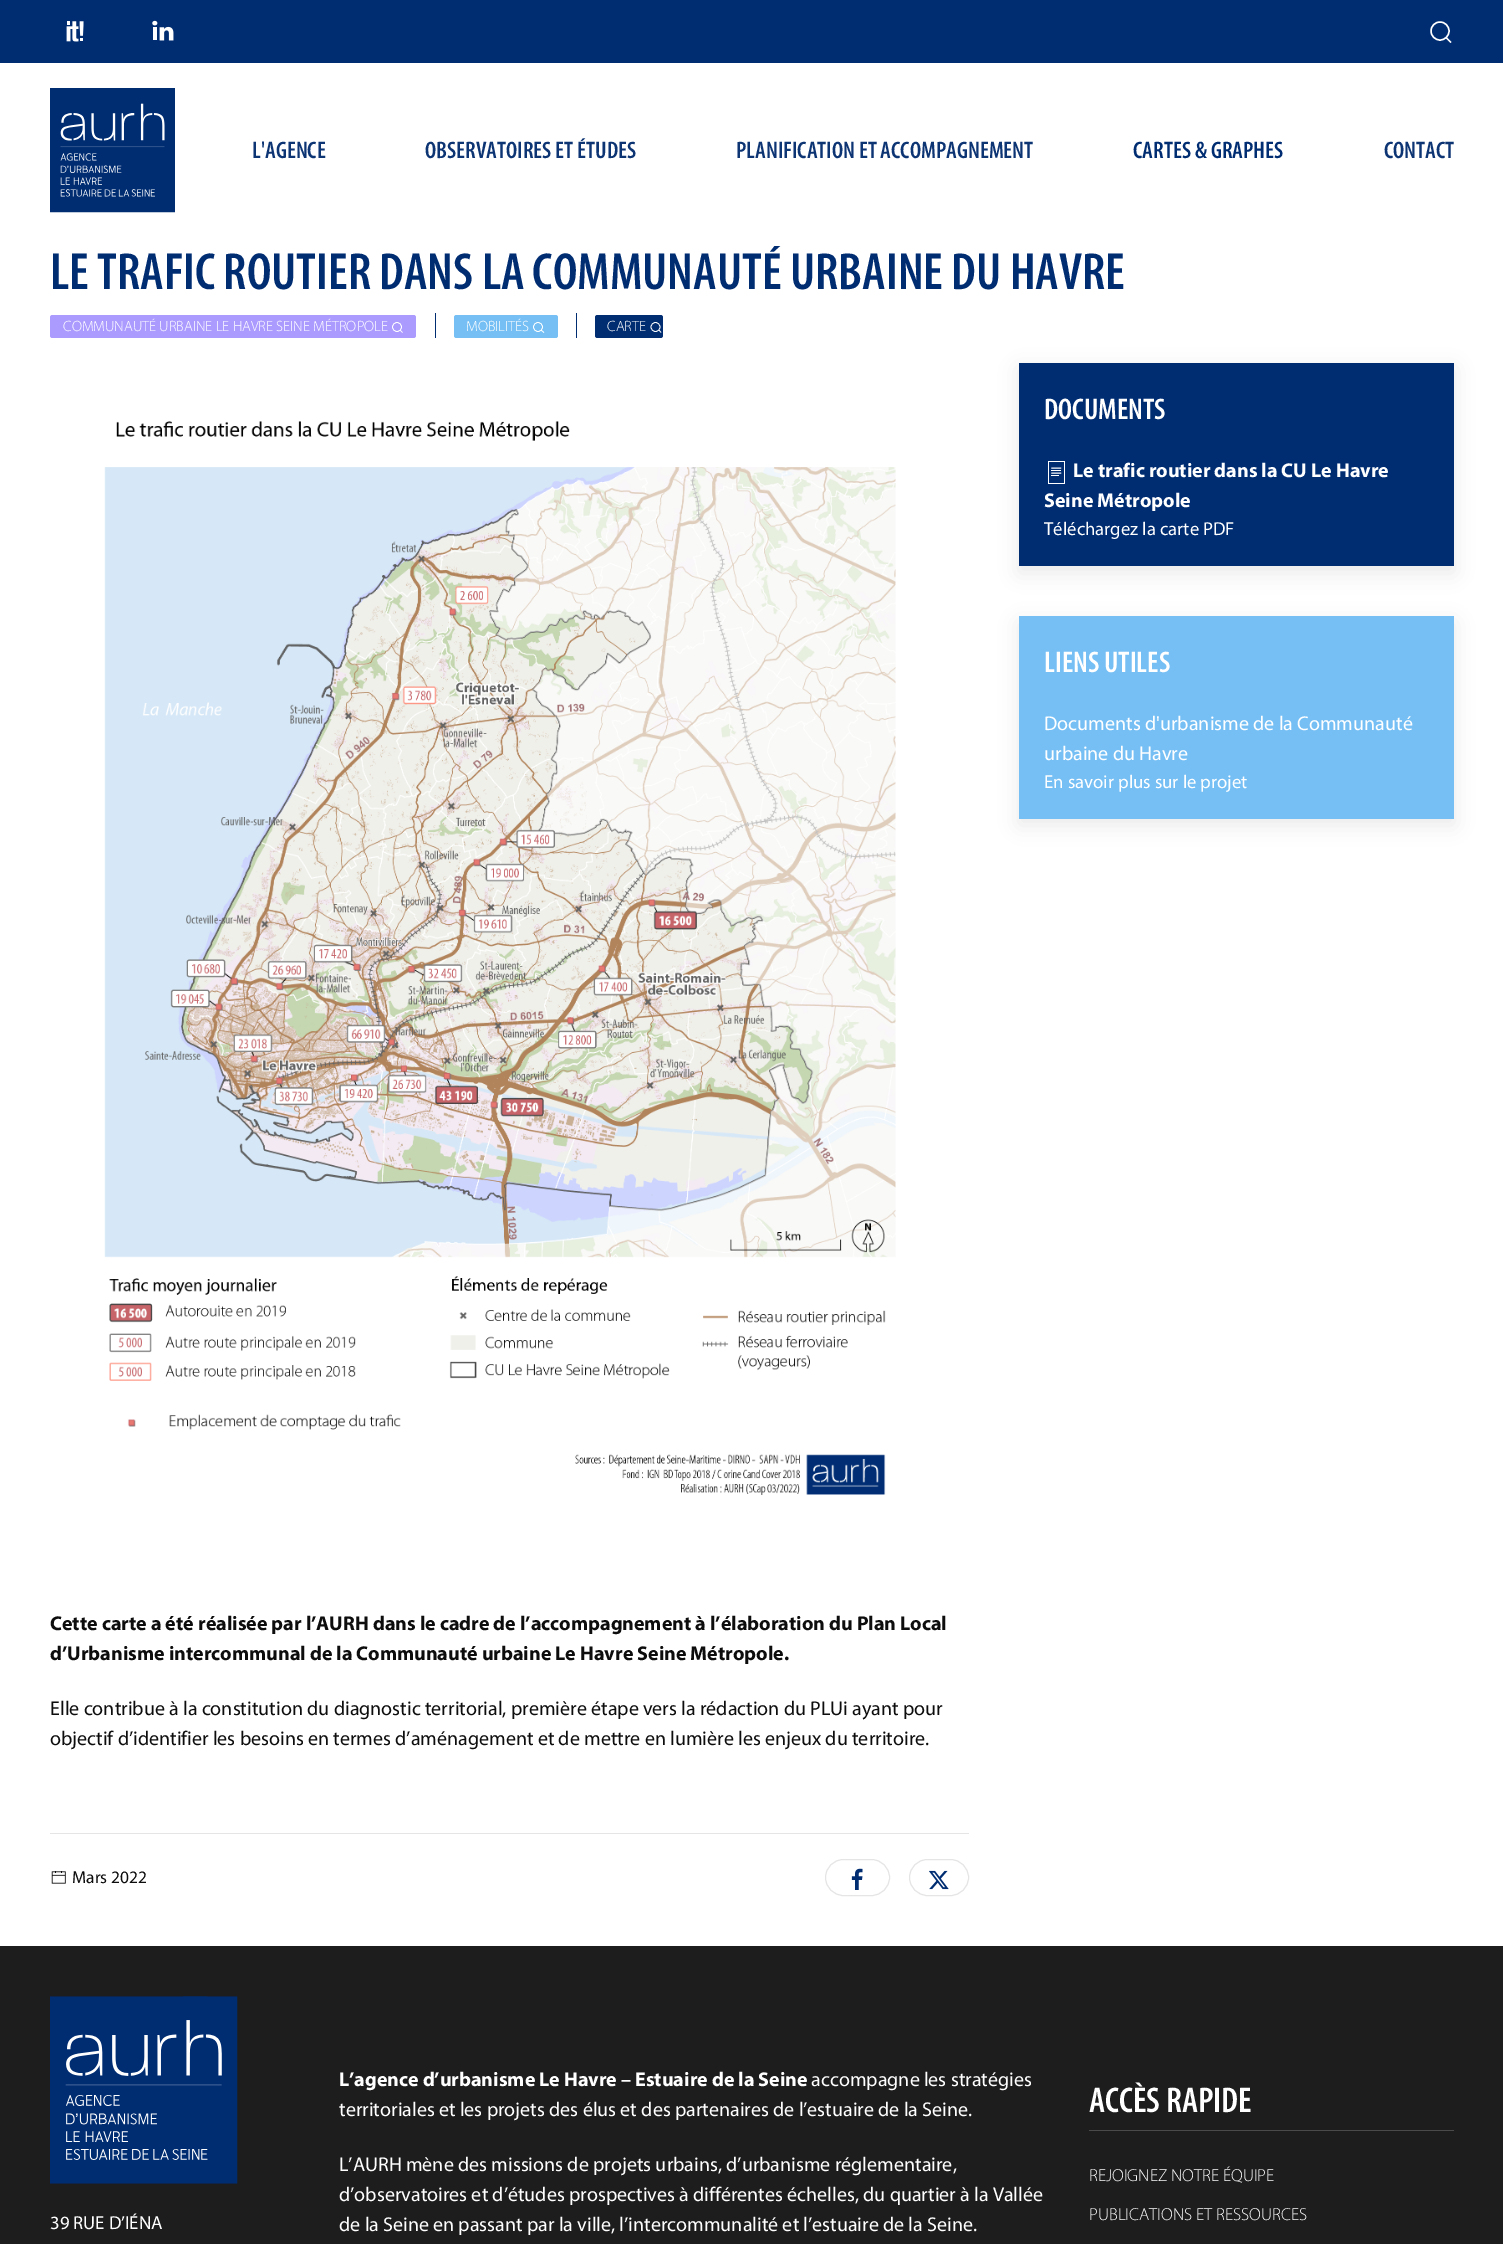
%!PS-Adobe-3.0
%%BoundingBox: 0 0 1503 2244
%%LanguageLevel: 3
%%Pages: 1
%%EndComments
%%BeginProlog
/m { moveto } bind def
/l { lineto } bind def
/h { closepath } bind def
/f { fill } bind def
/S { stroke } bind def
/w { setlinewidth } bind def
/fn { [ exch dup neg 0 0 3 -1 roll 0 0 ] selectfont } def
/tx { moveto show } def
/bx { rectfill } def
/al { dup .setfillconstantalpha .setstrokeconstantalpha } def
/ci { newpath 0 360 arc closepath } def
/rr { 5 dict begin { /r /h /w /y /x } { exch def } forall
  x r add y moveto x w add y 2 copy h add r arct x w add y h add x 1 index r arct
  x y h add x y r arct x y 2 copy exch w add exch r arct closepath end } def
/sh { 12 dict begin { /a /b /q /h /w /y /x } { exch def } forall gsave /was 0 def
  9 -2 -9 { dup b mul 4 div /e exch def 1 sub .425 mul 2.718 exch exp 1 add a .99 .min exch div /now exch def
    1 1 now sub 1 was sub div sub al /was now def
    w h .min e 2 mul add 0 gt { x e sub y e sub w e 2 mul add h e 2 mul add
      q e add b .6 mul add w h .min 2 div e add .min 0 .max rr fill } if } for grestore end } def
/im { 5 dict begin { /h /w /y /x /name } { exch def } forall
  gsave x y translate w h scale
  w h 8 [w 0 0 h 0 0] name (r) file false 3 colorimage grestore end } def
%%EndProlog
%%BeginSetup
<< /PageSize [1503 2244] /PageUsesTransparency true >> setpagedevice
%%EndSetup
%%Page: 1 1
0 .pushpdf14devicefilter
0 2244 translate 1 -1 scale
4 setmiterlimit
1 setgray
0 0 1503 2244 bx
0 0.176 0.447 setrgbcolor
0 0 1503 63 bx
(image0.raw) 66 21 18 21 im
(image1.raw) 152 20 22 21 im
1 setgray
1.4 w
1440 31 9 ci S
1446 37.5 m 1451 42.5 l h S
(image2.raw) 50 88 125 125 im
/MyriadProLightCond-SemiBold 24 fn
0.051 0.208 0.455 setrgbcolor
(L'AGENCE) 252 158 tx
(OBSERVATOIRES ET ÉTUDES) 425 158 tx
(PLANIFICATION ET ACCOMPAGNEMENT) 736 158 tx
0 0.176 0.447 setrgbcolor
(CARTES & GRAPHES) 1133 158 tx
0.051 0.208 0.455 setrgbcolor
(CONTACT) 1384 158 tx
/MyriadProLightCond-SemiBold 52.5 fn
0 0.176 0.447 setrgbcolor
(LE TRAFIC ROUTIER DANS LA COMMUNAUTÉ URBAINE DU HAVRE) 50 289 tx
0.675 0.608 0.996 setrgbcolor
50 315 366 23 2.5 rr f
/Myriad-Light 15 fn
1 setgray
(COMMUNAUTÉ URBAINE LE HAVRE SEINE MÉTROPOLE) 63 331 tx
0.7 w
397 327 4.5 ci S
400 330 m 402.5 332.5 l h S
0 0.176 0.447 setrgbcolor
435 313 1 25 bx
0.459 0.749 0.961 setrgbcolor
454 315 104 23 2.5 rr f
1 setgray
(MOBILITÉS) 466 331 tx
538 327 4.5 ci S
541 330 m 544 332.5 l h S
0 0.176 0.447 setrgbcolor
576 313 1 25 bx
595 315 68 23 2.5 rr f
1 setgray
(CARTE) 607 331 tx
655.5 327 4.5 ci S
659 330 m 661 332.5 l h S
0 setgray
1019 369 435 204 0 9.5 0.08 sh
0 0.176 0.447 setrgbcolor
1019 363 435 203 bx
/MyriadProLightCond-SemiBold 30 fn
1 setgray
(DOCUMENTS) 1044 419 tx
(image3.raw) 1048 461 17 23 im
/Myriad-Bold 20 fn
(Le trafic routier dans la CU Le Havre) 1073 477 tx
(Seine Métropole) 1044 507 tx
/Myriad-Regular 18.75 fn
(Téléchargez la carte PDF) 1044 535 tx
0 setgray
1019 623 435 202 0 9.5 0.08 sh
0.459 0.749 0.961 setrgbcolor
1019 616 435 203 bx
/MyriadProLightCond-SemiBold 30 fn
1 setgray
(LIENS UTILES) 1044 672 tx
/Myriad-Regular 20 fn
(Documents d'urbanisme de la Communauté) 1044 730 tx
(urbaine du Havre) 1044 760 tx
/Myriad-Regular 18.75 fn
(En savoir plus sur le projet) 1044 788 tx
(image4.raw) 104 421 792 1074 im
/Myriad-Bold 20 fn
0.051 setgray
(Cette carte a été réalisée par l’AURH dans le cadre de l’accompagnement à l’élaboration du Plan Local) 50 1630 tx
(d’Urbanisme intercommunal de la Communauté urbaine Le Havre Seine Métropole.) 50 1660 tx
/Myriad-Regular 20 fn
(Elle contribue à la constitution du diagnostic territorial, première étape vers la rédaction du PLUi ayant pour) 50 1715 tx
(objectif d’identifier les besoins en termes d’aménagement et de mettre en lumière les enjeux du territoire.) 50 1745 tx
0.898 setgray
50 1833 919 1 bx
(image5.raw) 51 1871 15 13 im
/Myriad-Regular 17.5 fn
0.051 setgray
(Mars 2022) 72 1883 tx
0.898 setgray
1 w
825.5 1859.5 64 36 18 rr S
(image6.raw) 851 1868 12 22 im
909.5 1859.5 59 36 18 rr S
(image7.raw) 929 1870 20 20 im
0.114 setgray
0 1946 1503 298 bx
(image8.raw) 50 1996 188 188 im
/Myriad-Regular 18.75 fn
1 setgray
(39 RUE D’IÉNA) 50 2229 tx
/Myriad-Bold 20 fn
(L’agence d’urbanisme Le Havre – Estuaire de la Seine) 339 2086 tx
/Myriad-Regular 20 fn
(accompagne les stratégies) 811 2086 tx
(territoriales et les projets des élus et des partenaires de l’estuaire de la Seine.) 339 2116 tx
(L’AURH mène des missions de projets urbains, d’urbanisme réglementaire,) 339 2171 tx
(d’observatoires et d’études prospectives à différentes échelles, du quartier à la Vallée) 339 2201 tx
(de la Seine en passant par la ville, l’intercommunalité et l’estuaire de la Seine.) 339 2231 tx
0.29 setgray
1089 2130 365 1 bx
/MyriadProLightCond-SemiBold 36 fn
1 setgray
(ACCÈS RAPIDE) 1089 2112 tx
/Myriad-Light 17.5 fn
(REJOIGNEZ NOTRE ÉQUIPE) 1089 2181 tx
(PUBLICATIONS ET RESSOURCES) 1089 2220 tx
.poppdf14devicefilter showpage
%%EOF
